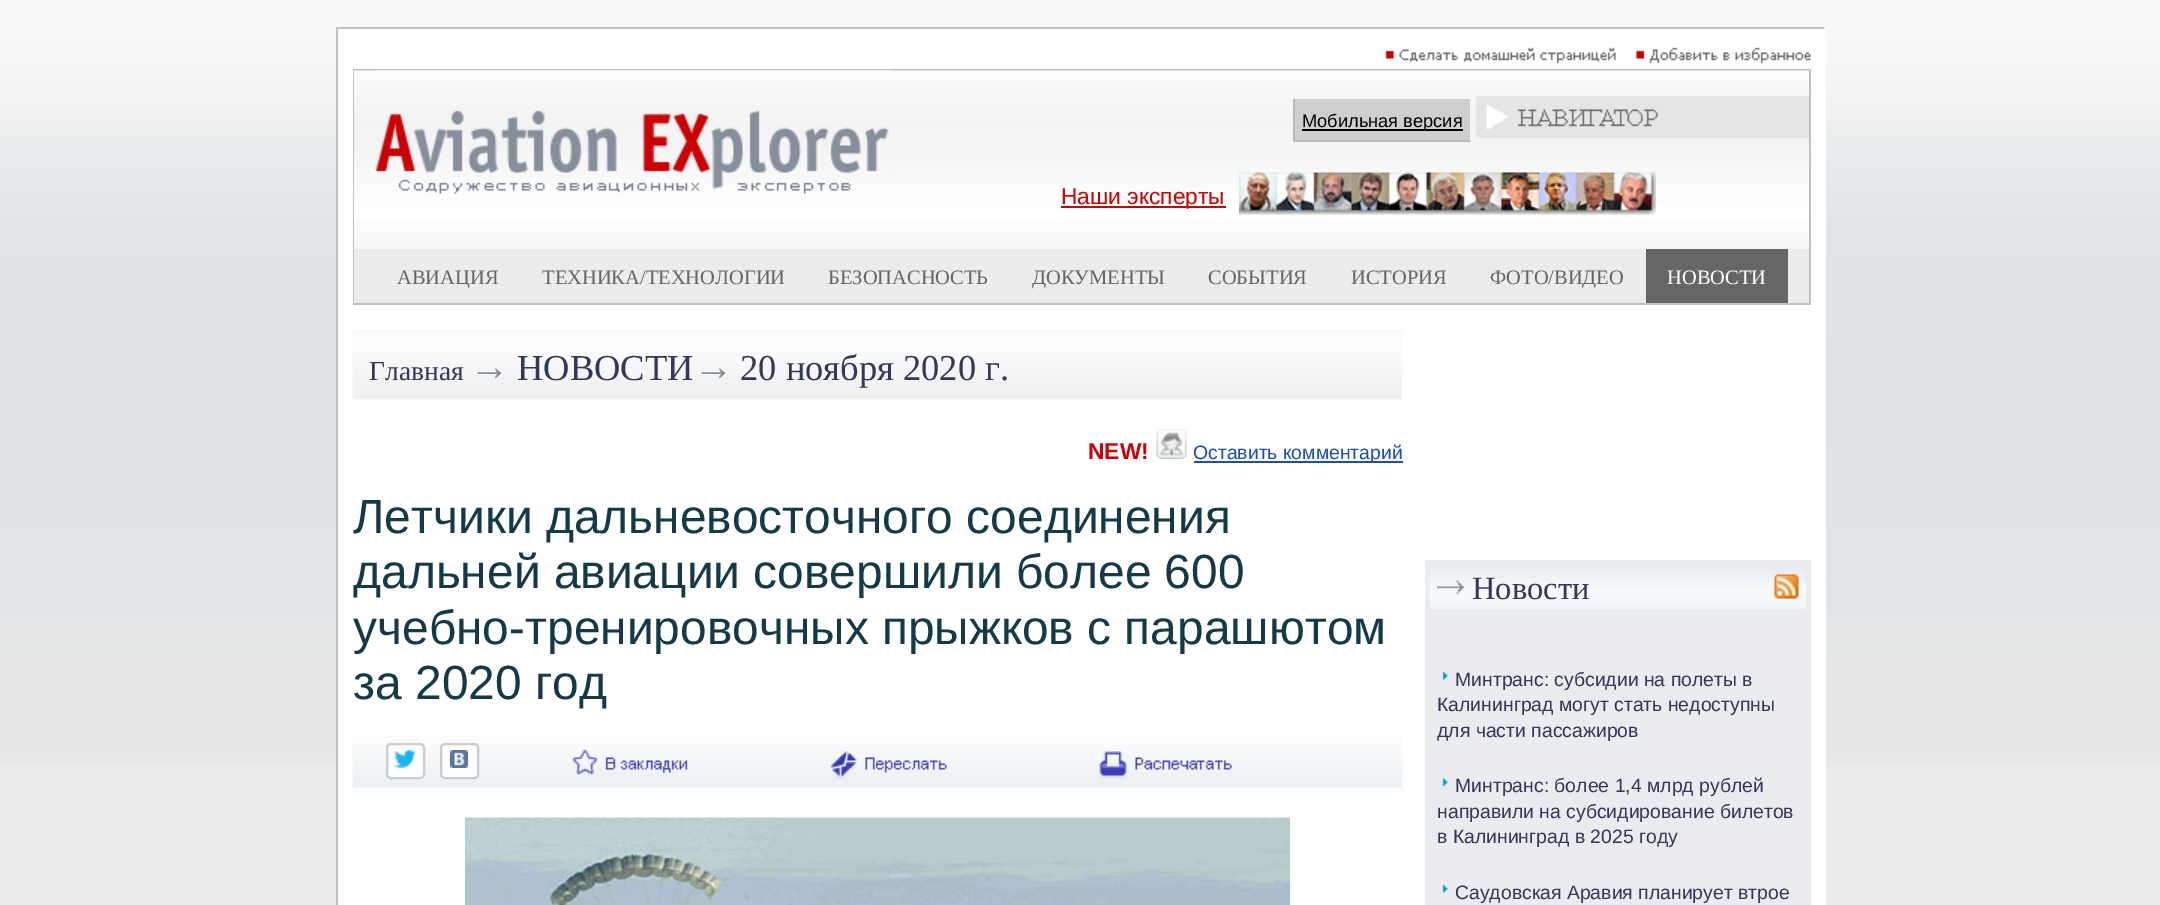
%!PS-Adobe-3.0
%%BoundingBox: 0 0 2160 905
%%LanguageLevel: 3
%%Pages: 1
%%EndComments
%%BeginProlog
/f { fill } bind def
/S { stroke } bind def
/q { gsave } bind def
/Q { grestore } bind def
/w { setlinewidth } bind def
/fn { [ exch dup neg 0 0 3 -1 roll 0 0 ] selectfont } def
/tx { moveto show } def
/bx { rectfill } def
/rr { 5 dict begin { /r /h /w /y /x } { exch def } forall
  x r add y moveto x w add y 2 copy h add r arct x w add y h add x 1 index r arct
  x y h add x y r arct x y 2 copy exch w add exch r arct closepath end } def
/im { 5 dict begin { /h /w /y /x /name } { exch def } forall
  gsave x y translate w h scale
  w h 8 [w 0 0 h 0 0] name (r) file false 3 colorimage grestore end } def
%%EndProlog
%%BeginSetup
<< /PageSize [2160 905] >> setpagedevice
%%EndSetup
%%Page: 1 1
0 905 translate 1 -1 scale
4 setmiterlimit
0.922 setgray
0 0 2160 905 bx
(image0.raw) 0 0 2160 766 im
0.753 setgray
2 w
337 28 1486 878 rectstroke
1 setgray
338 29 1488 876 bx
(image1.raw) 1385 47 231 17 im
(image2.raw) 1636 47 175 17 im
0.753 setgray
353 69 1458 236 bx
(image3.raw) 354 70 1455 179 im
(image4.raw) 376 70 517 124 im
0.812 setgray
1295 99 175 41 bx
0.733 setgray
1293 140 177 2 bx
1293 99 2 42 bx
0 setgray
1302 129 161 2 bx
/LiberationSans-Regular 18.25 fn
(Мобильная версия) 1302 127 tx
(image5.raw) 1476 96 333 42 im
0.792 0 0.008 setrgbcolor
1061 206 165 2 bx
/LiberationSans-Regular 22.75 fn
(Наши эксперты) 1061 204 tx
(image6.raw) 1239 172 417 43 im
0.925 setgray
354 249 1455 54 bx
/LiberationSerif-Regular 20.5 fn
0.4 setgray
(АВИАЦИЯ) 397 284 tx
(ТЕХНИКА/ТЕХНОЛОГИИ) 542 284 tx
(БЕЗОПАСНОСТЬ) 828 284 tx
(ДОКУМЕНТЫ) 1032 284 tx
(СОБЫТИЯ) 1208 284 tx
(ИСТОРИЯ) 1351 284 tx
(ФОТО/ВИДЕО) 1490 284 tx
1646 249 142 54 bx
1 setgray
(НОВОСТИ) 1667 284 tx
(image7.raw) 352 330 1051 70 im
/LiberationSerif-Regular 27.5 fn
0.196 0.22 0.353 setrgbcolor
(Главная) 369 380 tx
/LiberationSans-Regular 41 fn
0.529 0.561 0.612 setrgbcolor
(→) 469 380 tx
/LiberationSerif-Regular 36.5 fn
0.196 0.22 0.353 setrgbcolor
(НОВОСТИ) 517 380 tx
/LiberationSans-Regular 41 fn
0.529 0.561 0.612 setrgbcolor
(→) 693 380 tx
/LiberationSerif-Regular 36.5 fn
0.196 0.22 0.353 setrgbcolor
(20 ноября 2020 г.) 740 380 tx
/LiberationSans-Bold 22.75 fn
0.792 0 0.008 setrgbcolor
(NEW!) 1088 459 tx
(image8.raw) 1156 429 31 30 im
0.11 0.298 0.718 setrgbcolor
1194 461 209 2 bx
/LiberationSans-Regular 19.4 fn
(Оставить комментарий) 1193 459 tx
/LiberationSans-Regular 47.9 fn
0.078 0.227 0.278 setrgbcolor
(Летчики дальневосточного соединения) 353 533 tx
(дальней авиации совершили более 600) 353 588 tx
(учебно-тренировочных прыжков с парашютом) 353 644 tx
(за 2020 год) 353 699 tx
(image9.raw) 352 736 1051 56 im
1 setgray
387 744 37 34 4 rr q f Q
0.8 setgray
S
(image10.raw) 394 750 22 18 im
1 setgray
441 744 37 34 4 rr q f Q
0.8 setgray
S
(image11.raw) 450 750 18 18 im
(image12.raw) 572 749 116 26 im
(image13.raw) 830 751 117 29 im
(image14.raw) 1099 751 133 28 im
(image15.raw) 465 817 825 88 im
0.922 0.925 0.937 setrgbcolor
1425 560 386 345 bx
(image16.raw) 1429 571 377 38 im
(image17.raw) 1437 580 27 15 im
/LiberationSerif-Regular 32.5 fn
0.196 0.22 0.353 setrgbcolor
(Новости) 1472 599 tx
(image18.raw) 1774 574 25 25 im
(image19.raw) 1442 671 6 9 im
/LiberationSans-Regular 19.4 fn
(Минтранс: субсидии на полеты в) 1455 686 tx
(Калининград могут стать недоступны) 1437 711 tx
(для части пассажиров) 1437 737 tx
(image20.raw) 1442 778 6 9 im
(Минтранс: более 1,4 млрд рублей) 1455 792 tx
(направили на субсидирование билетов) 1437 818 tx
(в Калининград в 2025 году) 1437 843 tx
(image19.raw) 1442 884 6 9 im
(Саудовская Аравия планирует втрое) 1455 899 tx
showpage
%%EOF
